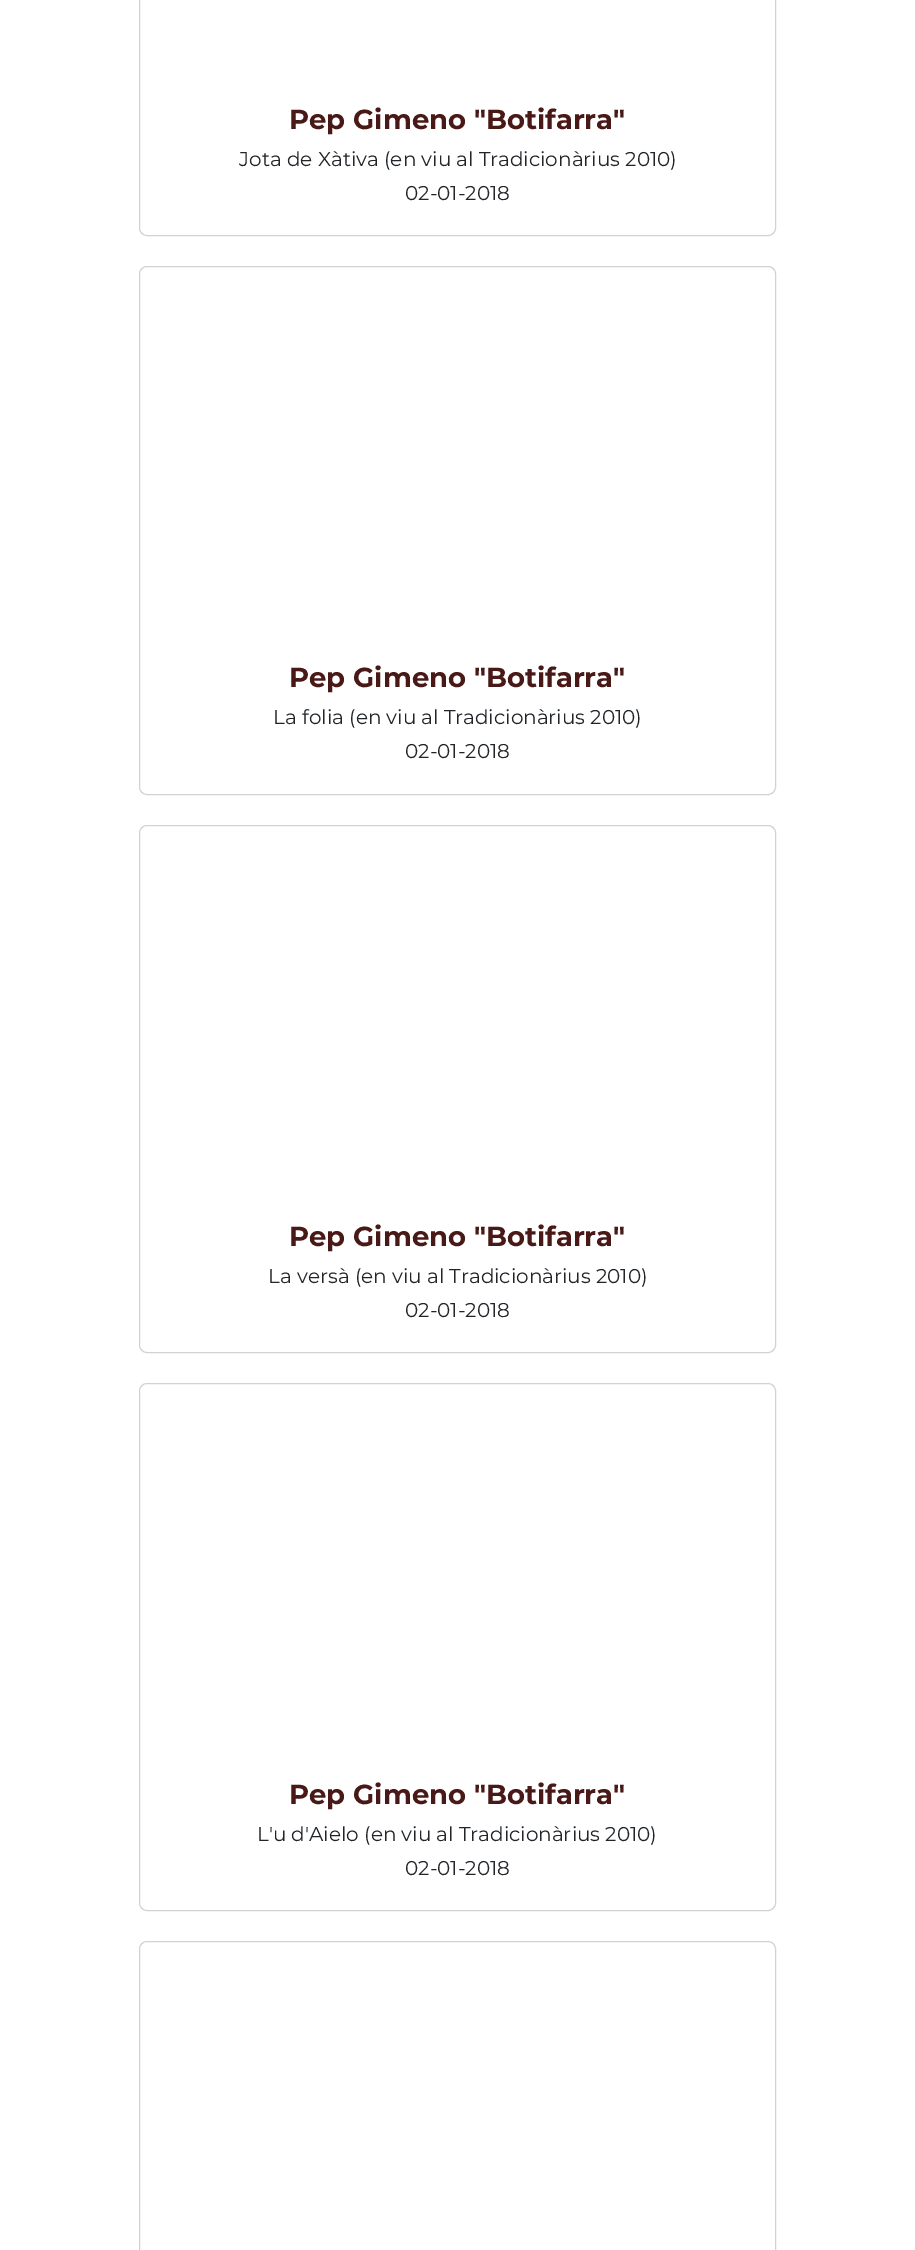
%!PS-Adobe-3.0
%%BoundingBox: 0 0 915 2250
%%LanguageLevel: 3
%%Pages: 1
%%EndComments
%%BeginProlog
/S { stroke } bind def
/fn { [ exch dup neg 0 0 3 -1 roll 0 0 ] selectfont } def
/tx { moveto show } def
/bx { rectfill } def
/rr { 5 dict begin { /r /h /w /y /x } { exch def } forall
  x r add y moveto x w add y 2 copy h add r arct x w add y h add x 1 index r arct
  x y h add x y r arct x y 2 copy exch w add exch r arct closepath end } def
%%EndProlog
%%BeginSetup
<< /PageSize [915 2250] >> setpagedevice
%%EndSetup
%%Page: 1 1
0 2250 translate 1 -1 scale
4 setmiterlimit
1 setgray
0 0 915 2250 bx
0.824 setgray
139.5 -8.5 636 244 7.5 rr S
/Montserrat-Bold 27.5 fn
0.286 0.098 0.09 setrgbcolor
(Pep Gimeno "Botifarra") 289 129 tx
/Montserrat-Regular 20 fn
0.129 0.145 0.161 setrgbcolor
(Jota de Xàtiva \(en viu al Tradicionàrius 2010\)) 239 166 tx
(02-01-2018) 405 200 tx
0.824 setgray
139.5 266.5 636 528 7.5 rr S
/Montserrat-Bold 27.5 fn
0.286 0.098 0.09 setrgbcolor
(Pep Gimeno "Botifarra") 289 687 tx
/Montserrat-Regular 20 fn
0.129 0.145 0.161 setrgbcolor
(La folia \(en viu al Tradicionàrius 2010\)) 273 724 tx
(02-01-2018) 405 758 tx
0.824 setgray
139.5 825.5 636 527 7.5 rr S
/Montserrat-Bold 27.5 fn
0.286 0.098 0.09 setrgbcolor
(Pep Gimeno "Botifarra") 289 1246 tx
/Montserrat-Regular 20 fn
0.129 0.145 0.161 setrgbcolor
(La versà \(en viu al Tradicionàrius 2010\)) 268 1283 tx
(02-01-2018) 405 1317 tx
0.824 setgray
139.5 1383.5 636 527 7.5 rr S
/Montserrat-Bold 27.5 fn
0.286 0.098 0.09 setrgbcolor
(Pep Gimeno "Botifarra") 289 1804 tx
/Montserrat-Regular 20 fn
0.129 0.145 0.161 setrgbcolor
(L'u d'Aielo \(en viu al Tradicionàrius 2010\)) 257 1841 tx
(02-01-2018) 405 1875 tx
0.824 setgray
139.5 1941.5 636 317 7.5 rr S
showpage
%%EOF
